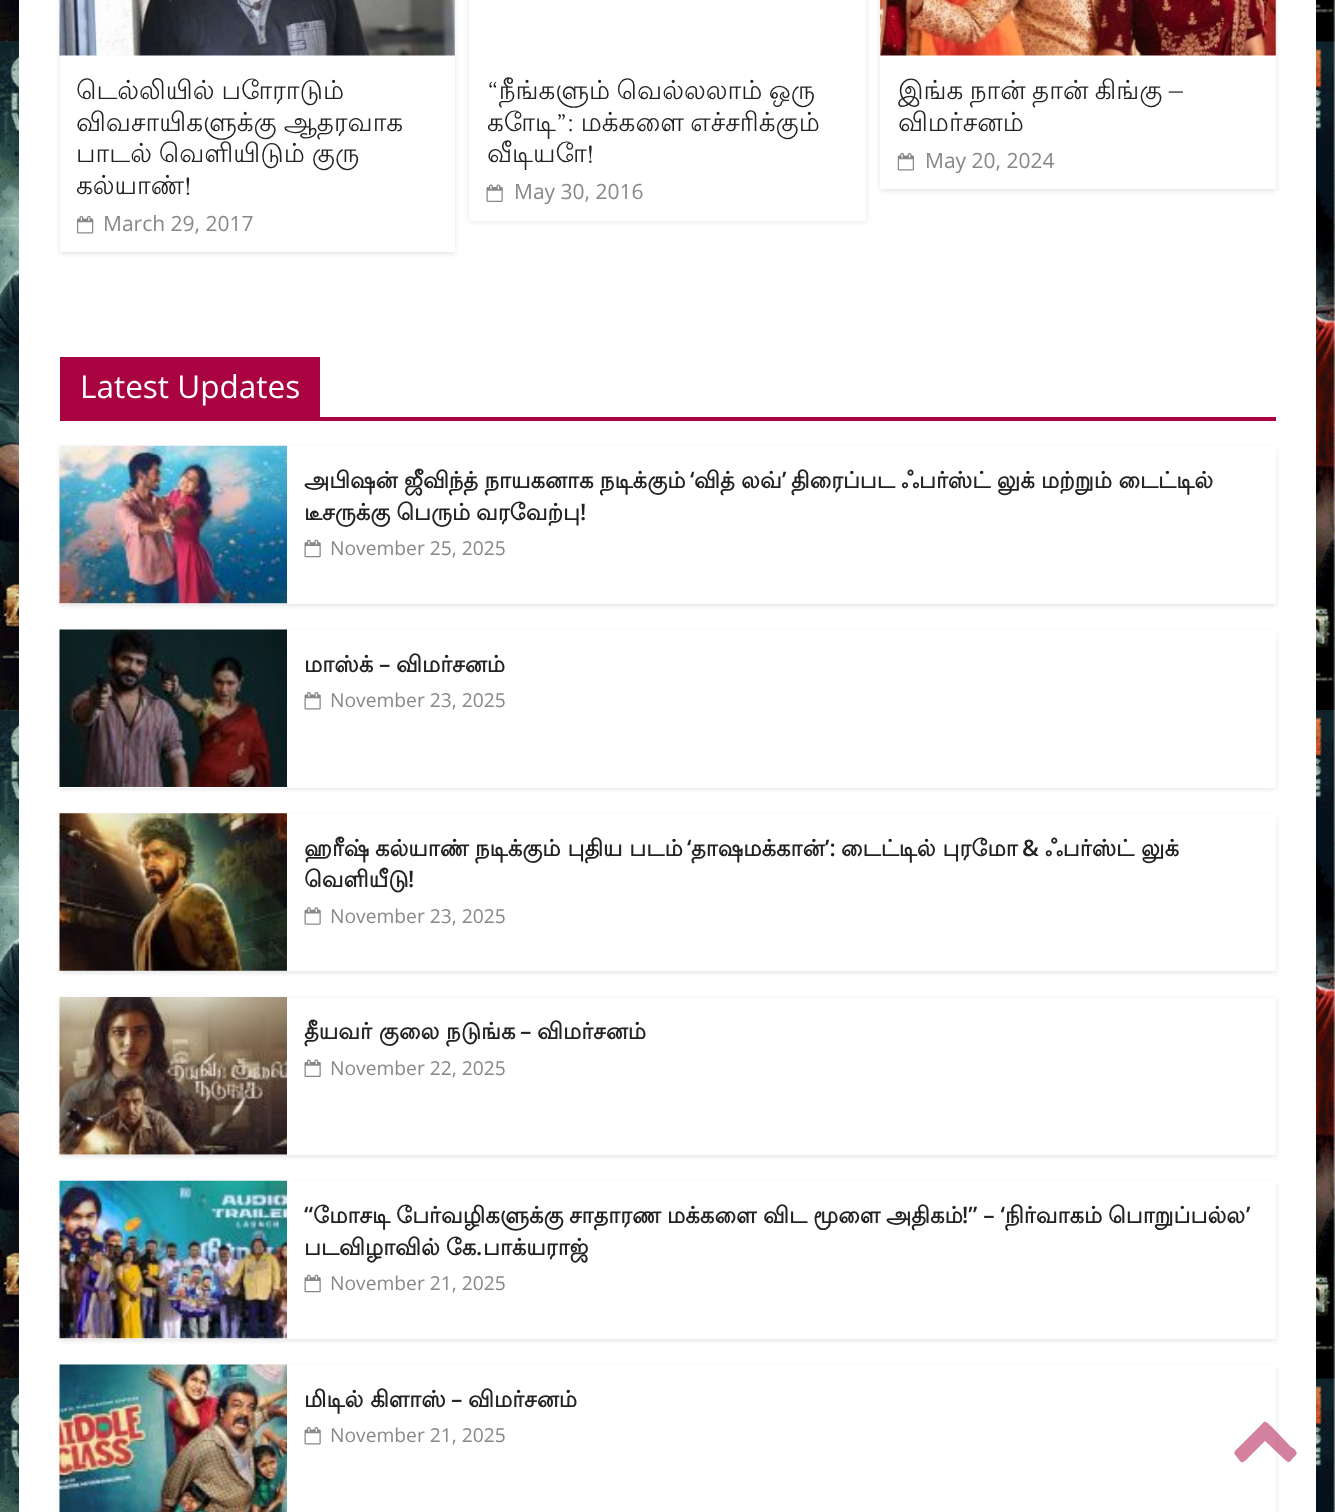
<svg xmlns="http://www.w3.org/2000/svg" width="1335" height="1512">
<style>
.a{font:26.25px Lohit Tamil;fill:#232323}
.b{font:21px Open Sans;fill:#888}
.c{font:31.5px Open Sans;fill:#fff}
.d{font:bold 22.75px Lohit Tamil;fill:#232323}
.e{font:600 22.75px Open Sans;fill:#232323}
.f{font:19.25px Open Sans;fill:#888}
</style>
<defs>
<clipPath id="clip1"><path d="M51 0h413v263h-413zm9-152h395v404h-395z" clip-rule="evenodd"/></clipPath>
<clipPath id="clip2"><path d="M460 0h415v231h-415zm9-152h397v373h-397z" clip-rule="evenodd"/></clipPath>
<clipPath id="clip3"><path d="M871 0h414v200h-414zm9-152h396v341h-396z" clip-rule="evenodd"/></clipPath>
</defs>
<rect width="100%" height="100%" fill="#fff"/>
<image href="1.png" x="0" y="0" width="1335" height="1512"/>
<path fill="#fff" d="M19 0h1297v1512H19z"/>
<g clip-path="url(#clip1)">
<path fill="#0000001a" filter="blur(2.5px)" d="M60 -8h395v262H60z"/>
</g>
<image href="2.png" x="59" y="0" width="396" height="56"/>
<image href="3.png" x="77" y="216" width="17" height="18"/>
<g clip-path="url(#clip2)">
<path fill="#0000001a" filter="blur(2.5px)" d="M469 -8h397v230H469z"/>
</g>
<image href="4.png" x="486" y="184" width="17" height="18"/>
<g clip-path="url(#clip3)">
<path fill="#0000001a" filter="blur(2.5px)" d="M880 -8h396v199H880z"/>
</g>
<image href="5.png" x="880" y="0" width="396" height="56"/>
<image href="6.png" x="897" y="153" width="17" height="18"/>
<path fill="#a90341" d="M60 417h1216v4H60z"/>
<path fill="#a90341" d="M60 357h260v60H60z"/>
<path fill="#0000001a" filter="blur(2.5px)" d="M60 448h1216v158H60z"/>
<path fill="#fff" d="M60 446h1216v158H60z"/>
<image href="7.png" x="59" y="445" width="228" height="159"/>
<image href="8.png" x="304" y="539" width="17" height="19"/>
<path fill="#0000001a" filter="blur(2.5px)" d="M60 632h1216v157H60z"/>
<path fill="#fff" d="M60 630h1216v158H60z"/>
<image href="9.png" x="59" y="629" width="228" height="158"/>
<image href="10.png" x="304" y="692" width="17" height="18"/>
<path fill="#0000001a" filter="blur(2.5px)" d="M60 816h1216v157H60z"/>
<path fill="#fff" d="M60 814h1216v157H60z"/>
<image href="11.png" x="59" y="813" width="228" height="158"/>
<image href="12.png" x="304" y="907" width="17" height="18"/>
<path fill="#0000001a" filter="blur(2.5px)" d="M60 999h1216v158H60z"/>
<path fill="#fff" d="M60 998h1216v157H60z"/>
<image href="13.png" x="59" y="997" width="228" height="158"/>
<image href="4.png" x="304" y="1059" width="17" height="18"/>
<path fill="#0000001a" filter="blur(2.5px)" d="M60 1183h1216v158H60z"/>
<path fill="#fff" d="M60 1181h1216v158H60z"/>
<image href="14.png" x="59" y="1180" width="228" height="159"/>
<image href="8.png" x="304" y="1274" width="17" height="19"/>
<path fill="#0000001a" filter="blur(2.5px)" d="M60 1367h1216v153H60z"/>
<path fill="#fff" d="M287 1365h989v147H287z"/>
<image href="15.png" x="59" y="1364" width="228" height="148"/>
<image href="10.png" x="304" y="1427" width="17" height="18"/>
<path fill="#a9034180" d="M1296 1455c-7 7-6 10-13 3l-18-17l-17 17c-7 7-6 5-12-2c-4-4 0-6 3-9l20-20c7-7 5-7 13 0l19 20c1 0 8 5 5 8z"/>
<text class="a" x="76" y="99" word-spacing="-1">டெல்லியில் போராடும்</text>
<text class="a" x="76" y="131" word-spacing="-1">விவசாயிகளுக்கு ஆதரவாக</text>
<text class="a" x="76" y="162" word-spacing="-1">பாடல் வெளியிடும் குரு</text>
<text class="a" x="76" y="194">கல்யாண்!</text>
<text class="b" x="103" y="231">March 29, 2017</text>
<text class="a" x="487" y="99" word-spacing="-1.5">“நீங்களும் வெல்லலாம் ஒரு</text>
<text class="a" x="487" y="131" word-spacing="-1.5">கோடி”: மக்களை எச்சரிக்கும்</text>
<text class="a" x="487" y="162">வீடியோ!</text>
<text class="b" x="514" y="199">May 30, 2016</text>
<text class="a" x="898" y="99" word-spacing="-1.5">இங்க நான் தான் கிங்கு –</text>
<text class="a" x="898" y="131">விமர்சனம்</text>
<text class="b" x="925" y="168">May 20, 2024</text>
<text class="c" x="80" y="398">Latest Updates</text>
<text class="d" x="304" y="488" word-spacing="-0.5">அபிஷன் ஜீவிந்த் நாயகனாக நடிக்கும்</text>
<text class="e" x="690" y="488">‘</text>
<text class="d" x="694" y="488" word-spacing="-0.5">வித் லவ்</text>
<text class="e" x="782" y="488">’</text>
<text class="d" x="791" y="488" word-spacing="-0.5">திரைப்பட ஃபர்ஸ்ட் லுக் மற்றும் டைட்டில்</text>
<text class="d" x="304" y="520" word-spacing="-1">டீசருக்கு பெரும் வரவேற்பு</text>
<text class="e" x="580" y="520">!</text>
<text class="f" x="330" y="555">November 25, 2025</text>
<text class="d" x="304" y="672">மாஸ்க்</text>
<text class="e" x="379" y="672">–</text>
<text class="d" x="396" y="672">விமர்சனம்</text>
<text class="f" x="330" y="707">November 23, 2025</text>
<text class="d" x="304" y="856" word-spacing="-1">ஹரீஷ் கல்யாண்</text>
<text class="d" x="475" y="856">நடிக்கும் புதிய படம்</text>
<text class="e" x="687" y="856">‘</text>
<text class="d" x="691" y="856">தாஷமக்கான்</text>
<text class="e" x="825" y="856">’:</text>
<text class="d" x="841" y="856">டைட்டில் புரமோ</text>
<text class="e" x="1022" y="856">&amp;</text>
<text class="d" x="1045" y="856">ஃபர்ஸ்ட் லுக்</text>
<text class="d" x="304" y="887">வெளியீடு</text>
<text class="e" x="408" y="887">!</text>
<text class="f" x="330" y="923">November 23, 2025</text>
<text class="d" x="304" y="1039">தீயவர் குலை நடுங்க</text>
<text class="e" x="520" y="1039">–</text>
<text class="d" x="537" y="1039">விமர்சனம்</text>
<text class="f" x="330" y="1075">November 22, 2025</text>
<text class="e" x="304" y="1223">“</text>
<text class="d" x="313" y="1223">மோசடி</text>
<text class="d" x="396" y="1223">பேர்வழிகளுக்கு</text>
<text class="d" x="667" y="1223">மக்களை</text>
<text class="d" x="763" y="1223">விட</text>
<text class="d" x="886" y="1223">அதிகம்</text>
<text class="e" x="962" y="1223">!” – ‘</text>
<text class="d" x="1005" y="1223" word-spacing="-1">நிர்வாகம் பொறுப்பல்ல</text>
<text class="e" x="1246" y="1223">’</text>
<text class="d" x="569" y="1223">சாதாரண</text>
<text class="d" x="813" y="1223">மூளை</text>
<text class="d" x="304" y="1255" word-spacing="-1">படவிழாவில் கே</text>
<text class="e" x="476" y="1255">.</text>
<text class="d" x="483" y="1255">பாக்யராஜ்</text>
<text class="f" x="330" y="1290">November 21, 2025</text>
<text class="d" x="304" y="1407">மிடில் கிளாஸ்</text>
<text class="e" x="451" y="1407">–</text>
<text class="d" x="468" y="1407">விமர்சனம்</text>
<text class="f" x="330" y="1442">November 21, 2025</text>
</svg>
